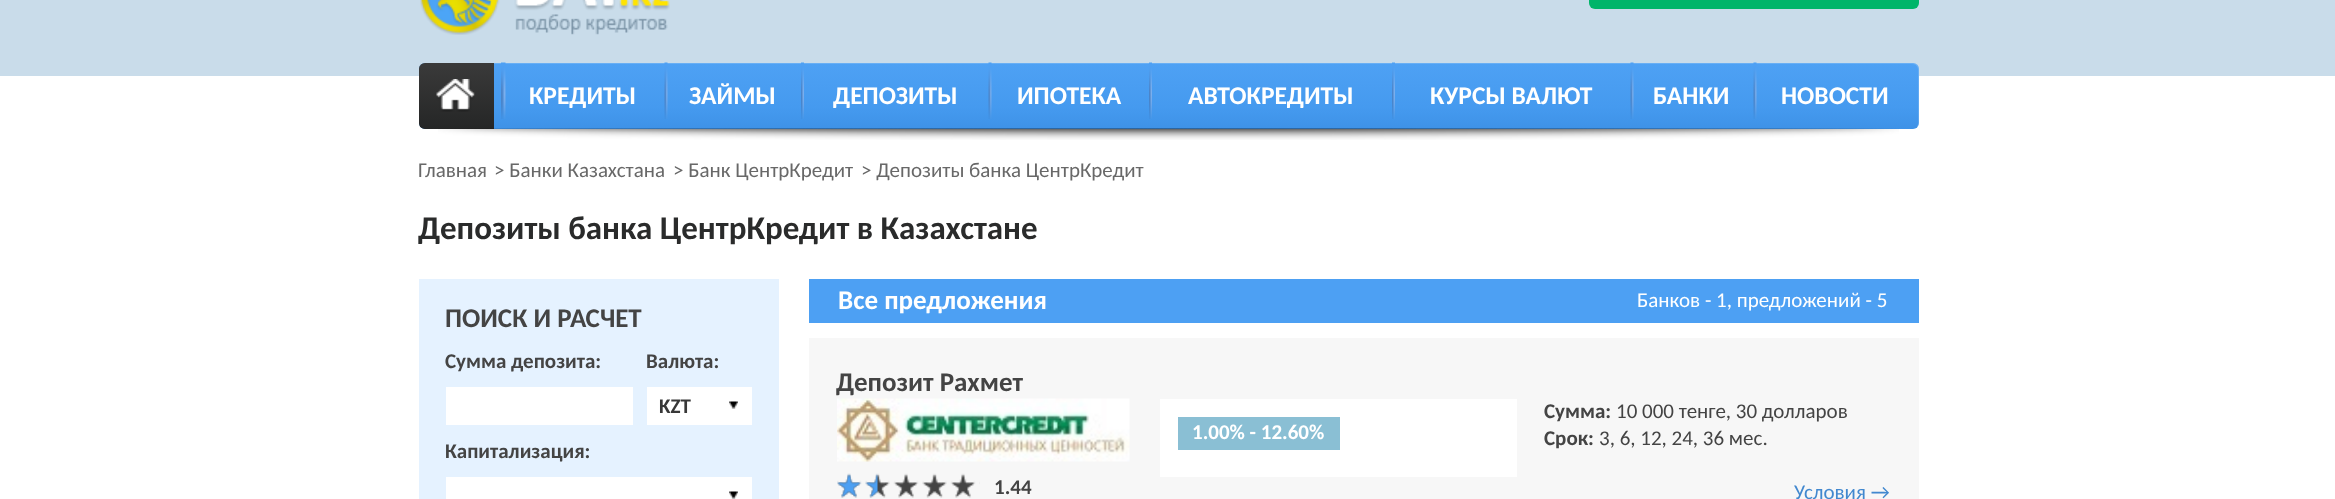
<svg xmlns="http://www.w3.org/2000/svg" width="2335" height="499">
<style>
.a{font:bold 25.5px Carlito;fill:#fff}
.b{font:21px Carlito;fill:#686868}
.c{font:bold 33px Carlito;fill:#2a2b2b}
.d{font:bold 27px Carlito;fill:#444}
.e{font:bold 21px Carlito;fill:#444}
.f{font:bold 21px Carlito;fill:#383838}
.g{font:bold 27px Carlito;fill:#fff}
.h{font:21px Carlito;fill:#fff}
.i{font:bold 21px Carlito;fill:#fff}
.j{font:21px Carlito;fill:#444}
.k{font:21px Carlito;fill:#4288cf}
</style>
<defs>
<linearGradient id="g1" gradientUnits="userSpaceOnUse" x1="1169" y1="63" x2="1169" y2="129"><stop offset="0" stop-color="#4ea1f4"/><stop offset="0.67" stop-color="#459aef"/><stop offset="1" stop-color="#3e92e7"/></linearGradient>
<linearGradient id="g2" gradientUnits="userSpaceOnUse" x1="456" y1="63" x2="456" y2="129"><stop offset="0" stop-color="#3a3a3a"/><stop offset="1" stop-color="#252626"/></linearGradient>
</defs>
<rect width="100%" height="100%" fill="#fff"/>
<path fill="#c9dcea" d="M0 0h2335v76H0z"/>
<image href="1.png" x="420" y="0" width="250" height="35"/>
<rect fill="#00b56a" x="1589" y="-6" width="330" height="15" rx="6"/>
<rect fill="url(#g1)" x="419" y="63" width="1500" height="66" rx="6"/>
<path fill="#ffffff26" d="M424 64h1488c4 0 6 3 6 6v54l-1 3c1-1 2-2 2-4v-54c0-3-3-6-6-6h-1488c-2 0-4 1-5 3c1-1 3-2 4-2z"/>
<path fill="url(#g2)" d="M425 63h69v66h-69c-3.5 0-6-2.5-6-6v-54c0-3.5 2.5-6 6-6z"/>
<image href="2.png" x="436" y="79" width="39" height="33"/>
<image href="3.png" x="501" y="62" width="5" height="57"/>
<image href="4.png" x="664" y="62" width="4" height="57"/>
<image href="5.png" x="801" y="62" width="3" height="57"/>
<image href="4.png" x="988" y="62" width="4" height="57"/>
<image href="6.png" x="1149" y="62" width="3" height="57"/>
<image href="5.png" x="1392" y="62" width="3" height="57"/>
<image href="4.png" x="1630" y="62" width="4" height="57"/>
<image href="4.png" x="1753" y="62" width="4" height="57"/>
<image href="7.png" x="438" y="128" width="1461" height="12"/>
<path fill="#e5f2ff" d="M419 279h360v220H419z"/>
<path fill="#fff" d="M446 387h187v38H446z"/>
<path fill="#fff" d="M647 387h105v38H647z"/>
<image href="8.png" x="729" y="401" width="9" height="8"/>
<path fill="#fff" d="M446 477h306v22H446z"/>
<image href="8.png" x="729" y="491" width="9" height="8"/>
<path fill="#4da0f3" d="M809 279h1110v44H809z"/>
<path fill="#f7f7f7" d="M809 338h1110v161H809z"/>
<path fill="#fff" d="M1160 399h357v78H1160z"/>
<path fill="#8abfd4" d="M1178 417h162v33H1178z"/>
<image href="9.png" x="837" y="398" width="293" height="64"/>
<image href="10.png" x="837" y="473" width="143" height="25"/>
<image href="11.png" x="837" y="473" width="41" height="25"/>
<text class="a" x="529" y="104">КРЕДИТЫ</text>
<text class="a" x="689" y="104">ЗАЙМЫ</text>
<text class="a" x="833" y="104">ДЕПОЗИТЫ</text>
<text class="a" x="1017" y="104">ИПОТЕКА</text>
<text class="a" x="1188" y="104">АВТОКРЕДИТЫ</text>
<text class="a" x="1430" y="104">КУРСЫ ВАЛЮТ</text>
<text class="a" x="1653" y="104">БАНКИ</text>
<text class="a" x="1781" y="104">НОВОСТИ</text>
<text class="b" x="418" y="177">Главная</text>
<text class="b" x="494" y="177">&gt; Банки Казахстана</text>
<text class="b" x="673" y="177">&gt; Банк ЦентрКредит</text>
<text class="b" x="861" y="177">&gt; Депозиты банка ЦентрКредит</text>
<text class="c" x="418" y="239">Депозиты банка ЦентрКредит в Казахстане</text>
<text class="d" x="445" y="327">ПОИСК И РАСЧЕТ</text>
<text class="e" x="445" y="368">Сумма депозита:</text>
<text class="e" x="646" y="368">Валюта:</text>
<text class="f" x="659" y="413">KZT</text>
<text class="e" x="445" y="458">Капитализация:</text>
<text class="g" x="838" y="309">Все предложения</text>
<text class="h" x="1637" y="307">Банков - 1, предложений - 5</text>
<text class="d" x="836" y="391">Депозит Рахмет</text>
<text class="i" x="1192" y="439">1.00% - 12.60%</text>
<text class="e" x="1544" y="418">Сумма:</text>
<text class="j" x="1616" y="418">10 000 тенге, 30 долларов</text>
<text class="e" x="1544" y="445">Срок:</text>
<text class="j" x="1599" y="445">3, 6, 12, 24, 36 мес.</text>
<text class="e" x="994" y="494">1.44</text>
<text class="k" x="1794" y="499">Условия →</text>
</svg>
